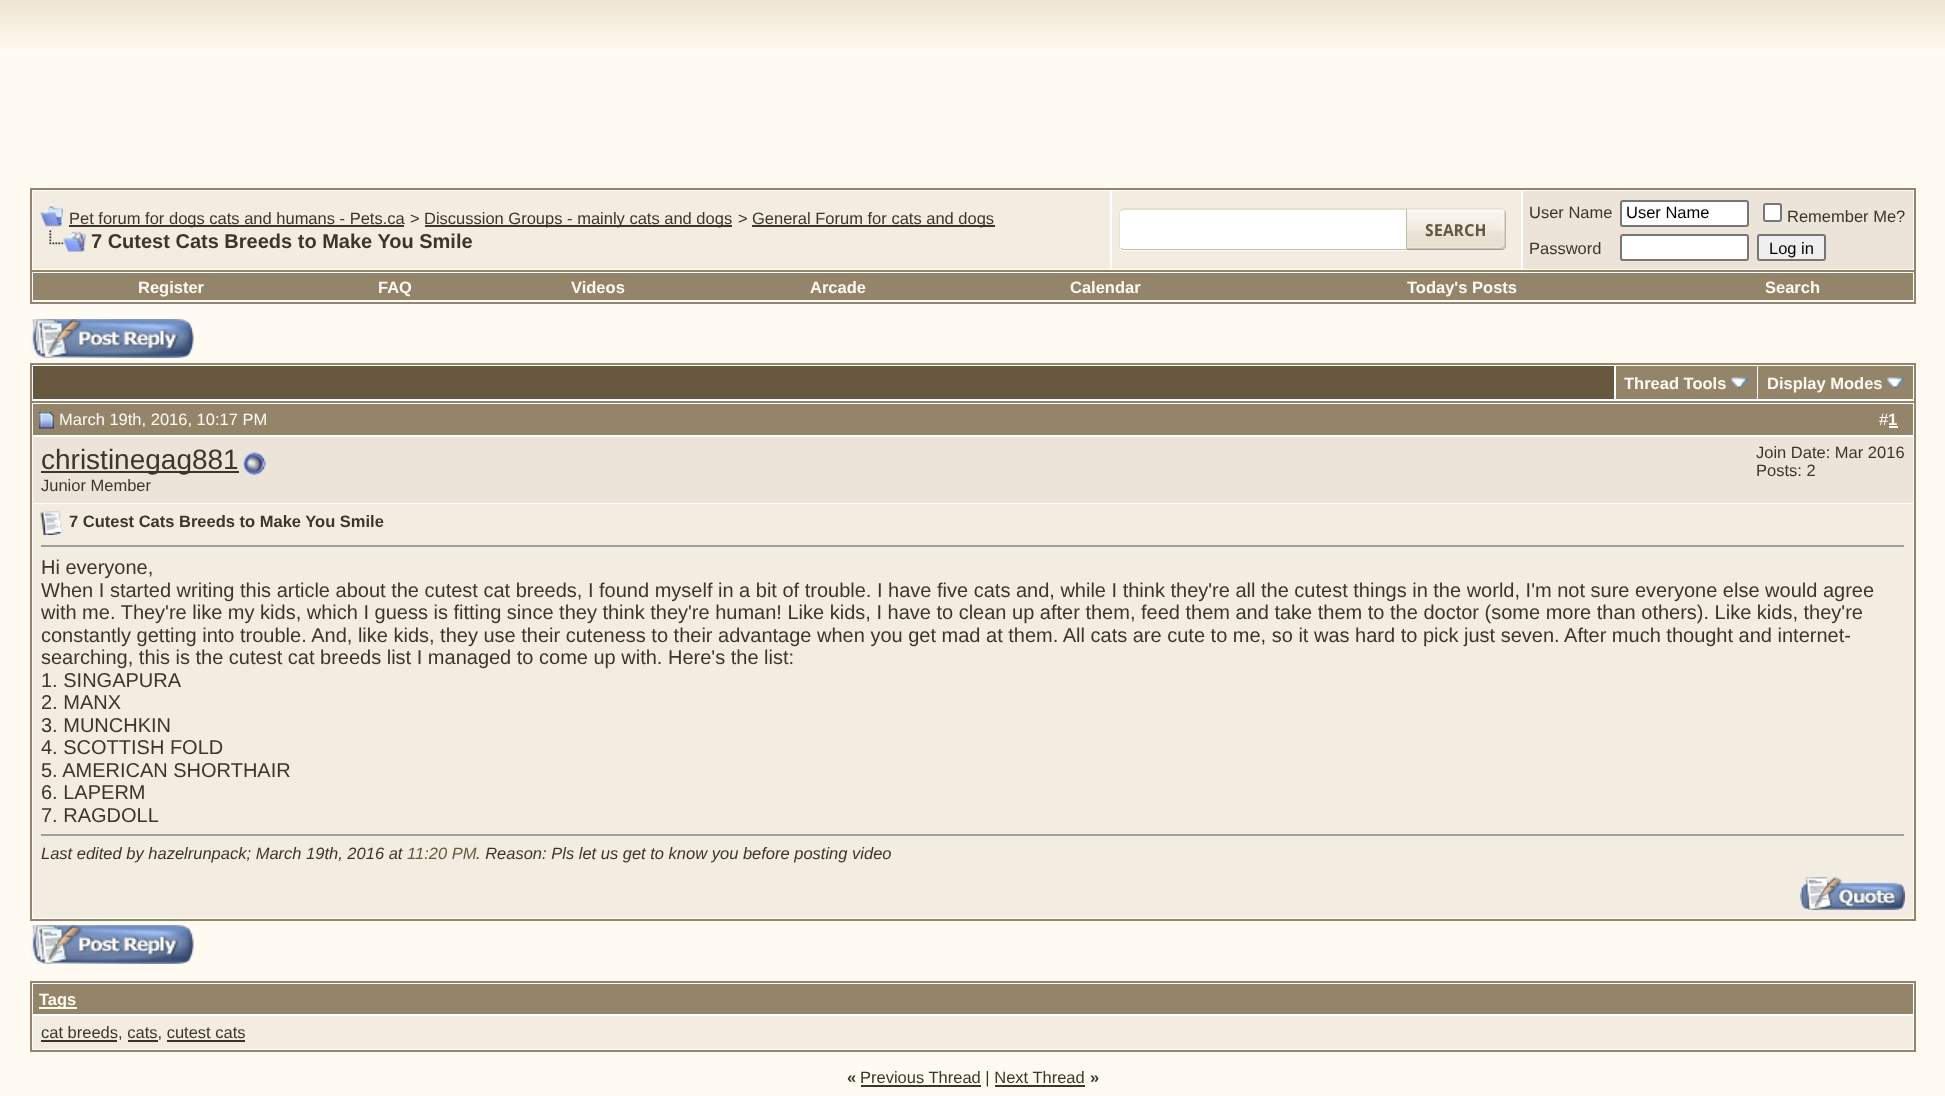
<svg xmlns="http://www.w3.org/2000/svg" width="1945" height="1096">
<style>
.a{font:16.5px Liberation Sans;fill:#3b352a}
.b{font:bold 20px Liberation Sans;fill:#3b352a}
.c{font:bold 16.5px Droid Sans;fill:#67583f}
.d{font:16.5px Liberation Sans;fill:#000}
.e{font:bold 16.5px Liberation Sans;fill:#fffaf2}
.f{font:16.5px Liberation Sans;fill:#fffaf2}
.g{font:28px Liberation Sans;fill:#3b352a}
.h{font:bold 16.5px Liberation Sans;fill:#3b352a}
.i{font:20px Liberation Sans;fill:#3b352a}
.j{font:italic 16.5px Liberation Sans;fill:#3b352a}
.k{font:italic 16.5px Liberation Sans;fill:#67583f}
</style>
<rect width="100%" height="100%" fill="#fffaf2"/>
<image href="1.png" x="0" y="0" width="1945" height="49"/>
<path fill="#fff" stroke="#94846a" stroke-width="2" d="M31 189h1884v82H31z"/>
<path fill="#f3ede1" d="M33 191h1077v78H33z"/>
<image href="2.png" x="40" y="206" width="23" height="21"/>
<path fill="#3b352a" d="M69 225h335v2H69z"/>
<path fill="#3b352a" d="M425 225h307v2H425z"/>
<path fill="#3b352a" d="M752 225h243v2H752z"/>
<image href="3.png" x="49" y="230" width="37" height="22"/>
<path fill="#f3ede1" d="M1112 191h409v78H1112z"/>
<path fill="#fff" d="M1124 209h283v42h-283c-3 0-5-2-5-5v-32c0-3 2-5 5-5z"/>
<path fill="#e7dfd2" d="M1124 210l-3 1l-1-1l2-2h285l-1 2z"/>
<path fill="#c0baaa" d="M1407 208l-1 2v39l1 1z"/>
<path fill="#c0baaa" d="M1406 250h-283l-2-1v-1l3 1h282z"/>
<path fill="#e7dfd4" d="M1119 213v33c0 1 .5 2 1.5 3l.5-1c-.5 0-1-1-1-2v-33c0-1 .5-2 1-2l-.5-1c-1 1-1.5 2-1.5 3z"/>
<image href="4.png" x="1407" y="208" width="99" height="42"/>
<path fill="#ece4d9" d="M1523 191h390v78H1523z"/>
<rect fill="#fff" stroke="#767676" stroke-width="2" x="1621" y="201" width="127" height="25" rx="2"/>
<rect fill="#fff" stroke="#767676" stroke-width="2" x="1764" y="204" width="17" height="17" rx="2"/>
<rect fill="#fff" stroke="#767676" stroke-width="2" x="1621" y="235" width="127" height="25" rx="2"/>
<rect fill="#efefef" stroke="#767676" stroke-width="2" x="1758" y="235" width="67" height="25" rx="2"/>
<path fill="#fff" d="M32 272h1882v30H32z"/>
<path fill="#94846a" d="M1914 272h2v31H1914z"/>
<path fill="#94846a" d="M30 302h1886v2H30z"/>
<path fill="#94846a" d="M30 272h2v31H30z"/>
<path fill="#94846a" d="M33 273h1880v27H33z"/>
<image href="5.png" x="31" y="319" width="163" height="39"/>
<path fill="#fff" d="M32 365h1882v36H32z"/>
<path fill="#94846a" d="M30 363h1886v2H30z"/>
<path fill="#94846a" d="M1914 363h2v38H1914z"/>
<path fill="#94846a" d="M30 363h2v38H30z"/>
<path fill="#67583f" d="M33 366h1581v33H33z"/>
<path fill="#94846a" d="M1616 366h141v33H1616z"/>
<image href="6.png" x="1731" y="377" width="17" height="11"/>
<path fill="#94846a" d="M1758 366h155v33H1758z"/>
<image href="7.png" x="1887" y="377" width="17" height="11"/>
<path fill="#fff" stroke="#94846a" stroke-width="2" d="M31 402h1884v518H31z"/>
<path fill="#94846a" d="M33 404h1880v31H33z"/>
<image href="8.png" x="39" y="412" width="15" height="17"/>
<path fill="#fffaf2" d="M1889 426h9v2H1889z"/>
<path fill="#ece4d9" d="M33 437h1880v66H33z"/>
<path fill="#3b352a" d="M41 471h198v2H41z"/>
<image href="9.png" x="243" y="452" width="23" height="23"/>
<path fill="#f3ede1" d="M33 504h1880v414H33z"/>
<image href="10.png" x="40" y="511" width="24" height="24"/>
<path fill="#9f9f9f" d="M41 545h1864v2H41z"/>
<path fill="#eee" d="M1904 545h2v2H1904z"/>
<path fill="#9f9f9f" d="M41 834h1864v2H41z"/>
<path fill="#eee" d="M1904 834h2v2H1904z"/>
<image href="11.png" x="1800" y="877" width="105" height="33"/>
<image href="5.png" x="31" y="925" width="163" height="39"/>
<path fill="#fff" stroke="#94846a" stroke-width="2" d="M31 982h1884v69H31z"/>
<path fill="#94846a" d="M33 984h1880v30H33z"/>
<path fill="#fffaf2" d="M39 1007h38v2H39z"/>
<path fill="#f3ede1" d="M33 1016h1880v33H33z"/>
<path fill="#3b352a" d="M41 1040h76v2H41z"/>
<path fill="#3b352a" d="M128 1040h30v2H128z"/>
<path fill="#3b352a" d="M167 1040h78v2H167z"/>
<path fill="#3b352a" d="M861 1085h120v2H861z"/>
<path fill="#3b352a" d="M995 1085h90v2H995z"/>
<text class="a" x="69" y="224">Pet forum for dogs cats and humans - Pets.ca</text>
<text class="a" x="410" y="224">&gt;</text>
<text class="a" x="424" y="224">Discussion Groups - mainly cats and dogs</text>
<text class="a" x="738" y="224">&gt;</text>
<text class="a" x="752" y="224">General Forum for cats and dogs</text>
<text class="b" x="91" y="248">7 Cutest Cats Breeds to Make You Smile</text>
<text class="c" x="1425" y="236">SEARCH</text>
<text class="a" x="1529" y="218">User Name</text>
<text class="d" x="1626" y="218">User Name</text>
<text class="a" x="1787" y="222">Remember Me?</text>
<text class="a" x="1529" y="254">Password</text>
<text class="d" x="1769" y="254">Log in</text>
<text class="e" x="138" y="293">Register</text>
<text class="e" x="378" y="293">FAQ</text>
<text class="e" x="571" y="293">Videos</text>
<text class="e" x="810" y="293">Arcade</text>
<text class="e" x="1070" y="293">Calendar</text>
<text class="e" x="1407" y="293">Today's Posts</text>
<text class="e" x="1765" y="293">Search</text>
<text class="e" x="1624" y="389">Thread Tools</text>
<text class="e" x="1767" y="389">Display Modes</text>
<text class="f" x="59" y="425">March 19th, 2016, 10:17 PM</text>
<text class="f" x="1879" y="425">#</text>
<text class="e" x="1888" y="425">1</text>
<text class="g" x="41" y="469">christinegag881</text>
<text class="a" x="41" y="491">Junior Member</text>
<text class="a" x="1756" y="458">Join Date: Mar 2016</text>
<text class="a" x="1756" y="476">Posts: 2</text>
<text class="h" x="69" y="527">7 Cutest Cats Breeds to Make You Smile</text>
<text class="i" x="41" y="574">Hi everyone,</text>
<text class="i" x="41" y="597">When I started writing this article about the cutest cat breeds, I found myself in a bit of trouble. I have five cats and, while I think they're all the cutest things in the world, I'm not sure everyone else would agree</text>
<text class="i" x="41" y="619">with me. They're like my kids, which I guess is fitting since they think they're human! Like kids, I have to clean up after them, feed them and take them to the doctor (some more than others). Like kids, they're</text>
<text class="i" x="41" y="642">constantly getting into trouble. And, like kids, they use their cuteness to their advantage when you get mad at them. All cats are cute to me, so it was hard to pick just seven. After much thought and internet-</text>
<text class="i" x="41" y="664">searching, this is the cutest cat breeds list I managed to come up with. Here's the list:</text>
<text class="i" x="41" y="687">1. SINGAPURA</text>
<text class="i" x="41" y="709">2. MANX</text>
<text class="i" x="41" y="732">3. MUNCHKIN</text>
<text class="i" x="41" y="754">4. SCOTTISH FOLD</text>
<text class="i" x="41" y="777">5. AMERICAN SHORTHAIR</text>
<text class="i" x="41" y="799">6. LAPERM</text>
<text class="i" x="41" y="822">7. RAGDOLL</text>
<text class="j" x="41" y="859">Last edited by hazelrunpack; March 19th, 2016 at</text>
<text class="k" x="407" y="859">11:20 PM</text>
<text class="j" x="476" y="859">. Reason: Pls let us get to know you before posting video</text>
<text class="e" x="39" y="1005">Tags</text>
<text class="a" x="41" y="1038">cat breeds, cats, cutest cats</text>
<text class="h" x="847" y="1083">«</text>
<text class="a" x="860" y="1083">Previous Thread | Next Thread</text>
<text class="h" x="1090" y="1083">»</text>
</svg>
